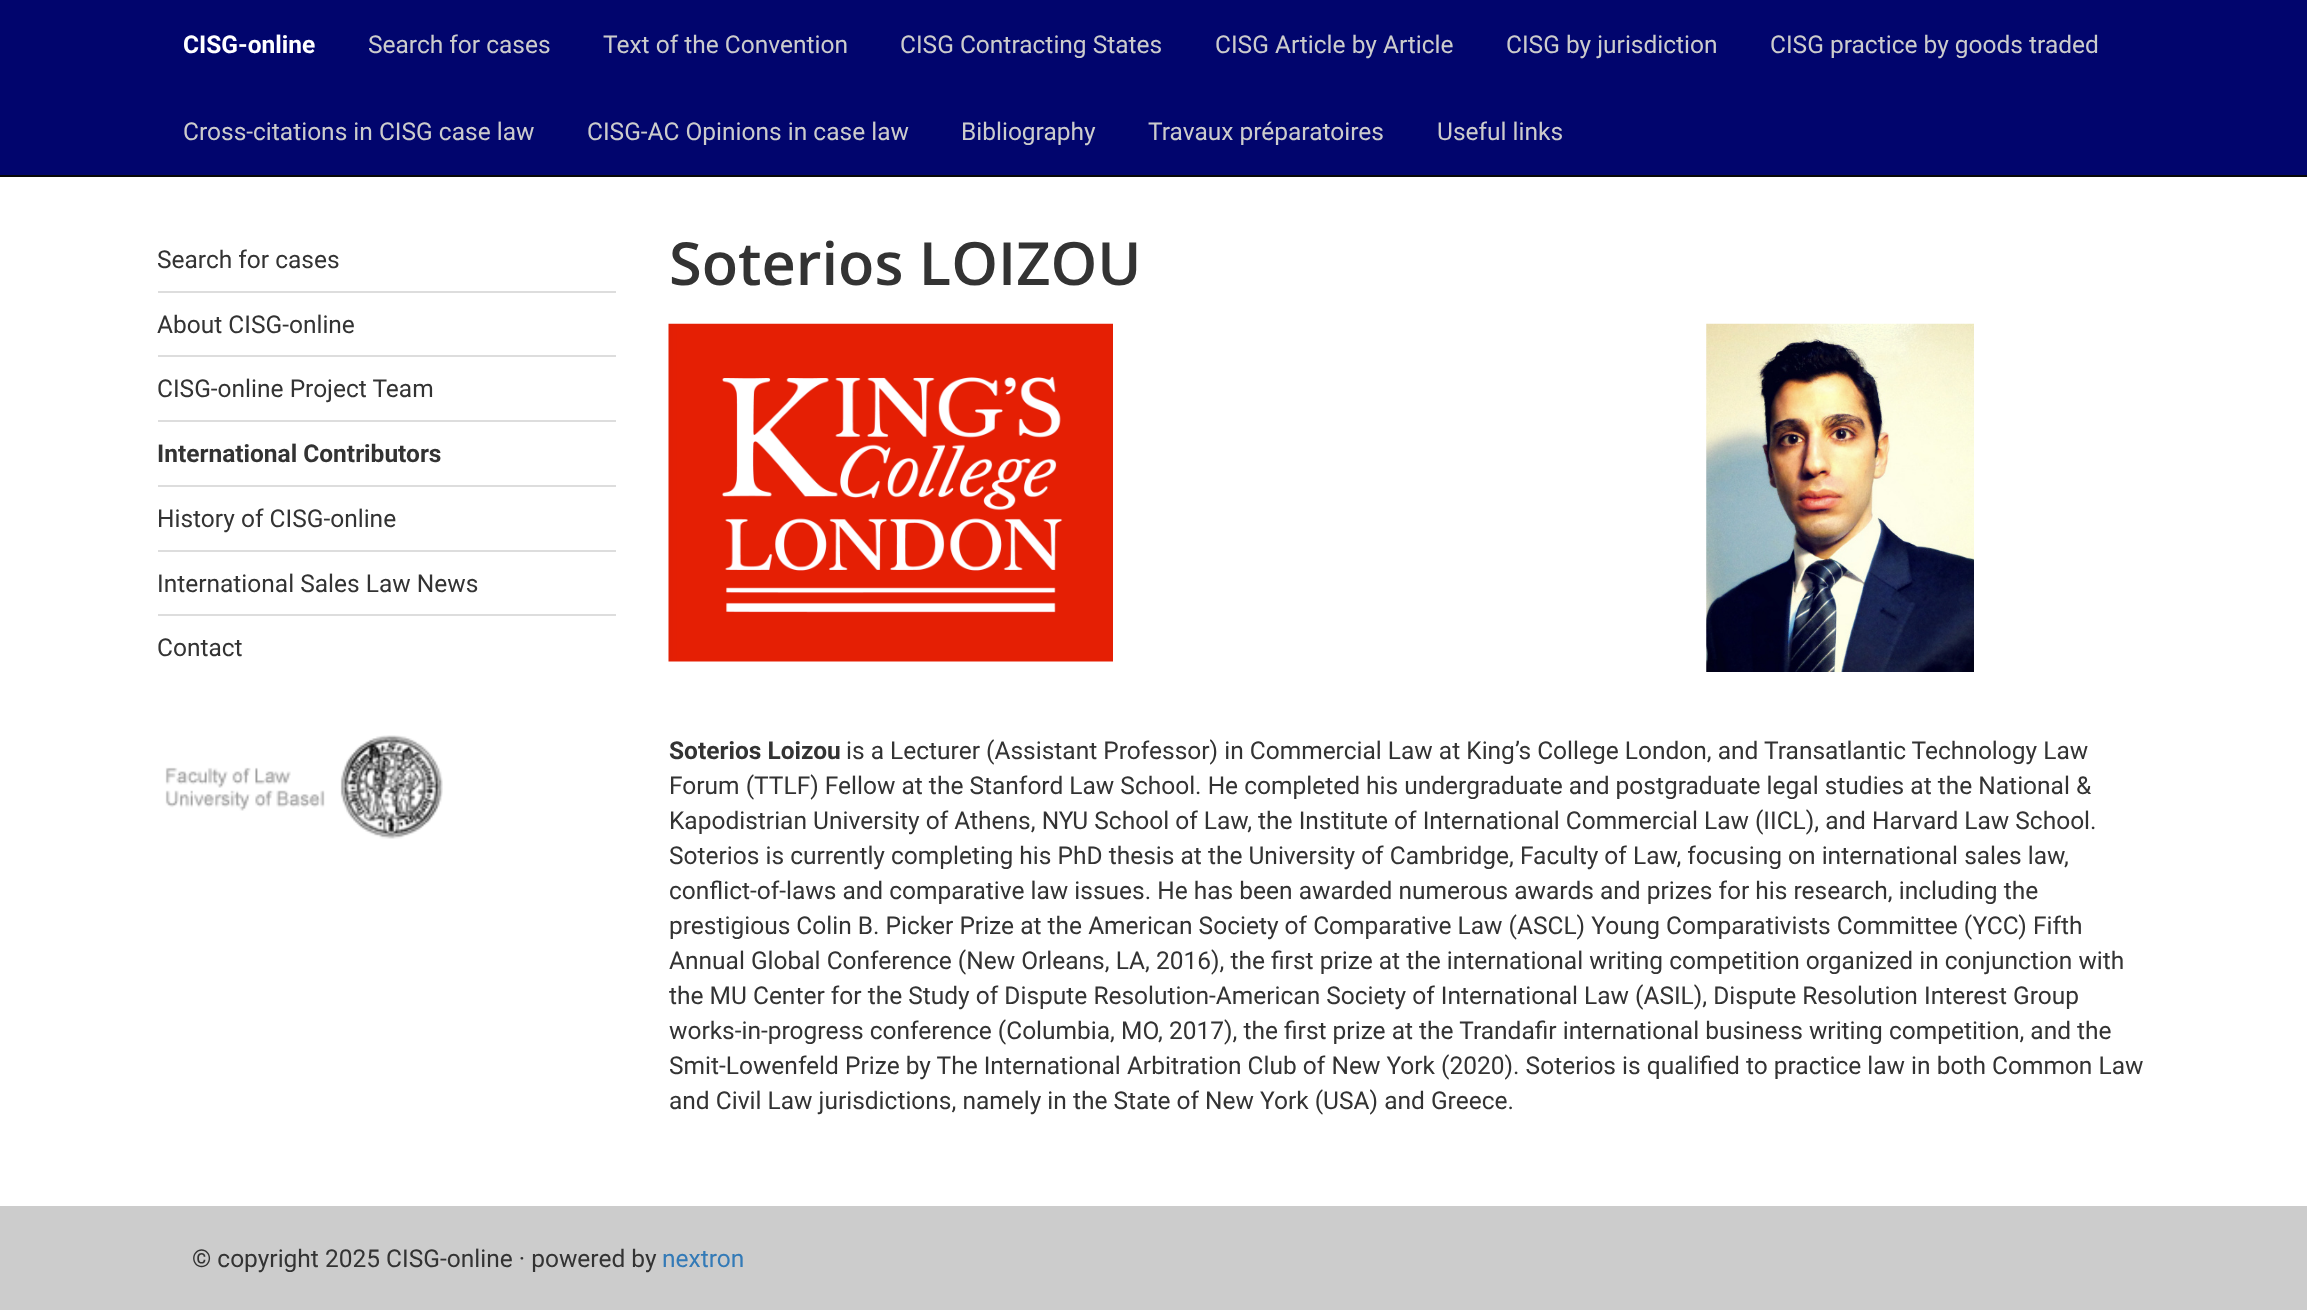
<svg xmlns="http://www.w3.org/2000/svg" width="2307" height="1310">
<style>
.a{font:bold 24.5px Roboto;fill:#fff}
.b{font:24.5px Roboto;fill:#ccc}
.c{font:24.5px Roboto;fill:#333}
.d{font:bold 24.5px Roboto;fill:#333}
.e{font:600 59.5px Open Sans;fill:#333}
.f{font:24.5px Roboto;fill:#337ab7}
</style>
<rect width="100%" height="100%" fill="#fff"/>
<path fill="#01056d" d="M0 0h2307v175H0z"/>
<path fill="#080808" d="M0 175h2307v2H0z"/>
<path fill="#ddd" d="M158 291h458v2H158z"/>
<path fill="#ddd" d="M158 355h458v2H158z"/>
<path fill="#ddd" d="M158 420h458v2H158z"/>
<path fill="#ddd" d="M158 485h458v2H158z"/>
<path fill="#ddd" d="M158 550h458v2H158z"/>
<path fill="#ddd" d="M158 614h458v2H158z"/>
<image href="1.png" x="165" y="735" width="278" height="104"/>
<image href="2.png" x="668" y="323" width="445" height="339"/>
<image href="3.png" x="1706" y="323" width="268" height="349"/>
<path fill="#ccc" d="M0 1206h2307v104H0z"/>
<text class="a" x="183" y="53">CISG-online</text>
<text class="b" x="368" y="53">Search for cases</text>
<text class="b" x="603" y="53">Text of the Convention</text>
<text class="b" x="900" y="53">CISG Contracting States</text>
<text class="b" x="1215" y="53">CISG Article by Article</text>
<text class="b" x="1506" y="53">CISG by jurisdiction</text>
<text class="b" x="1770" y="53">CISG practice by goods traded</text>
<text class="b" x="183" y="140">Cross-citations in CISG case law</text>
<text class="b" x="587" y="140">CISG-AC Opinions in case law</text>
<text class="b" x="961" y="140">Bibliography</text>
<text class="b" x="1148" y="140">Travaux préparatoires</text>
<text class="b" x="1437" y="140">Useful links</text>
<text class="c" x="157" y="268">Search for cases</text>
<text class="c" x="157" y="333">About CISG-online</text>
<text class="c" x="157" y="397">CISG-online Project Team</text>
<text class="d" x="157" y="462">International Contributors</text>
<text class="c" x="157" y="527">History of CISG-online</text>
<text class="c" x="157" y="592">International Sales Law News</text>
<text class="c" x="157" y="656">Contact</text>
<text class="e" x="669" y="285">Soterios LOIZOU</text>
<text class="d" x="669" y="759">Soterios Loizou</text>
<text class="c" x="846" y="759">is a Lecturer (Assistant Professor) in Commercial Law at King’s College London, and Transatlantic Technology Law</text>
<text class="c" x="669" y="794">Forum (TTLF) Fellow at the Stanford Law School. He completed his undergraduate and postgraduate legal studies at the National &amp;</text>
<text class="c" x="669" y="829">Kapodistrian University of Athens, NYU School of Law, the Institute of International Commercial Law (IICL), and Harvard Law School.</text>
<text class="c" x="669" y="864">Soterios is currently completing his PhD thesis at the University of Cambridge, Faculty of Law, focusing on international sales law,</text>
<text class="c" x="669" y="899">conflict-of-laws and comparative law issues. He has been awarded numerous awards and prizes for his research, including the</text>
<text class="c" x="669" y="934">prestigious Colin B. Picker Prize at the American Society of Comparative Law (ASCL) Young Comparativists Committee (YCC) Fifth</text>
<text class="c" x="669" y="969">Annual Global Conference (New Orleans, LA, 2016), the first prize at the international writing competition organized in conjunction with</text>
<text class="c" x="669" y="1004">the MU Center for the Study of Dispute Resolution-American Society of International Law (ASIL), Dispute Resolution Interest Group</text>
<text class="c" x="669" y="1039">works-in-progress conference (Columbia, MO, 2017), the first prize at the Trandafir international business writing competition, and the</text>
<text class="c" x="669" y="1074">Smit-Lowenfeld Prize by The International Arbitration Club of New York (2020). Soterios is qualified to practice law in both Common Law</text>
<text class="c" x="669" y="1109">and Civil Law jurisdictions, namely in the State of New York (USA) and Greece.</text>
<text class="c" x="192" y="1267">© copyright 2025 CISG-online · powered by</text>
<text class="f" x="662" y="1267">nextron</text>
</svg>
